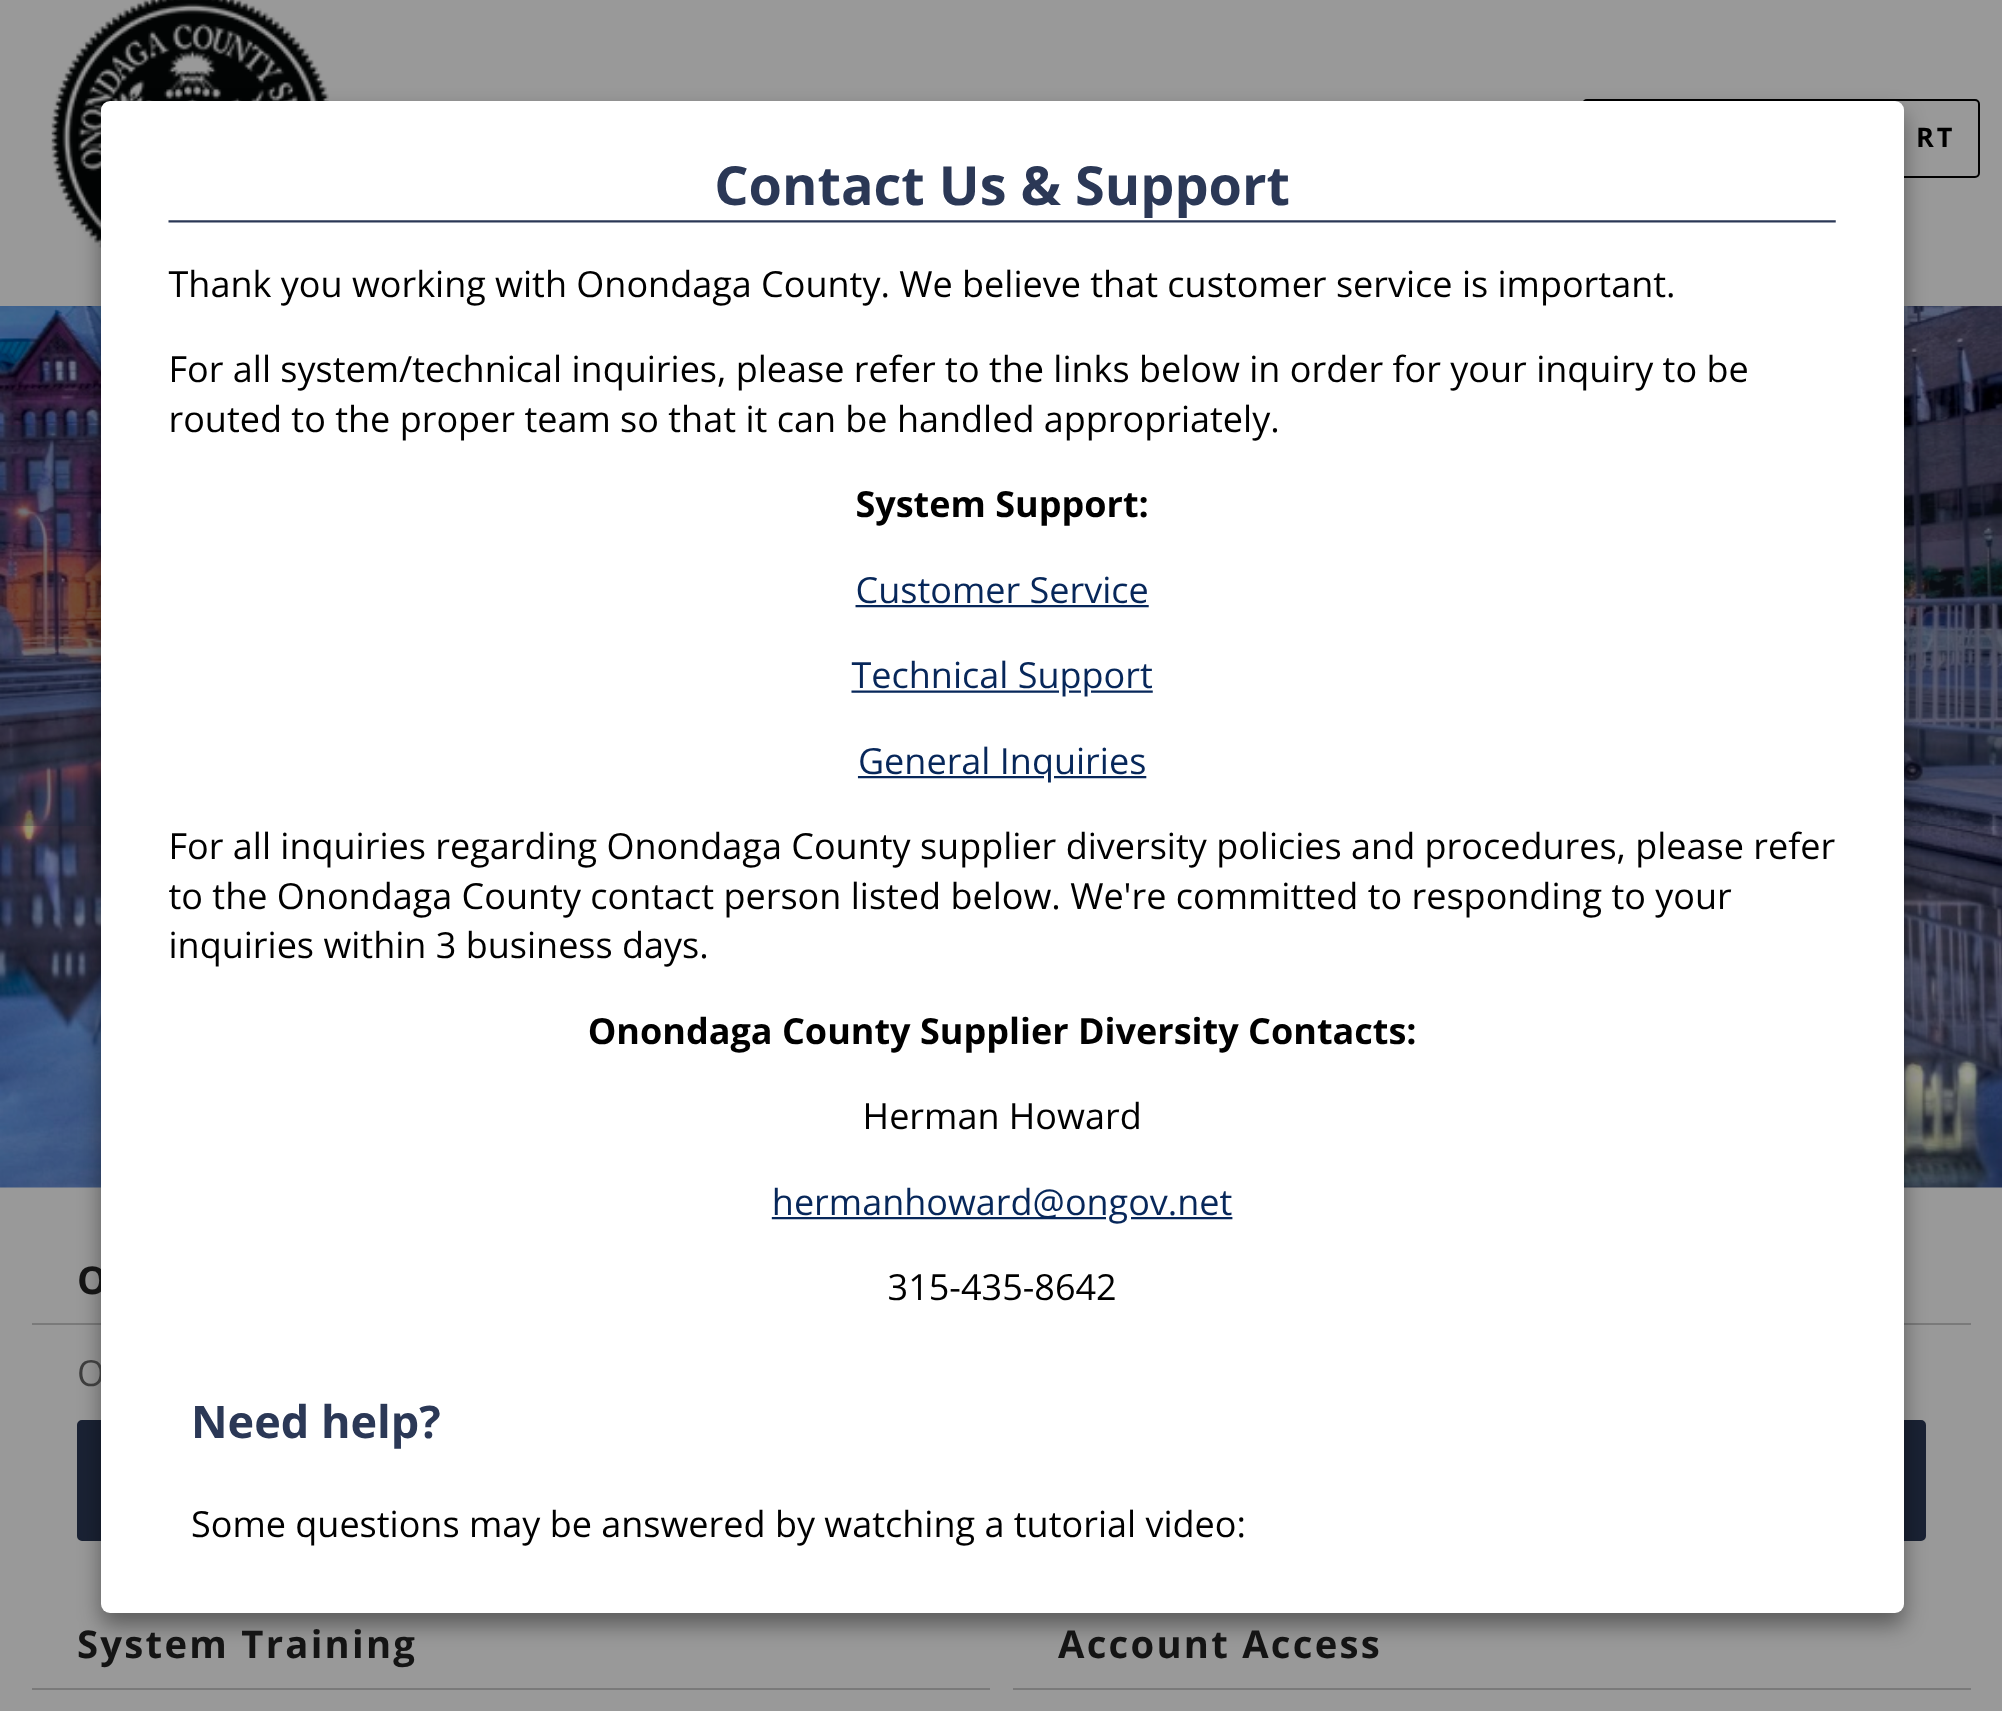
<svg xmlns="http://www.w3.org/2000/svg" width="2002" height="1711">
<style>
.a{font:bold 27px Open Sans;letter-spacing:3px;fill:#000}
.b{font:bold 38.25px Open Sans;letter-spacing:2.25px;fill:#141414}
.c{font:36px Open Sans;letter-spacing:-1px;fill:#3d3d3d}
</style>
<rect width="100%" height="100%" fill="#999"/>
<image href="1.png" x="0" y="306" width="2002" height="882"/>
<image href="2.png" x="51" y="0" width="278" height="248"/>
<rect fill="none" stroke="#000" stroke-width="2" x="1583" y="100" width="396" height="77" rx="4"/>
<path fill="#1c293a4d" d="M0 425h2002v401H0z"/>
<path fill="#7a7a7a" d="M32 1323h69v2H32z"/>
<rect fill="#1a2234" stroke="#1a2234" stroke-width="2" x="78" y="1421" width="866" height="119" rx="4"/>
<path fill="#7a7a7a" d="M1904 1323h67v2H1904z"/>
<rect fill="#1a2234" stroke="#1a2234" stroke-width="2" x="1059" y="1421" width="866" height="119" rx="4"/>
<rect fill="#00000066" filter="blur(11px)" x="101" y="113" width="1803" height="1512" rx="9"/>
<path fill="#7a7a7a" d="M32 1688h958v2H32z"/>
<path fill="#7a7a7a" d="M1013 1688h958v2H1013z"/>
<text class="a" x="1916" y="147">RT</text>
<text class="b" x="77" y="1294">O</text>
<text class="c" x="77" y="1386">O</text>
<rect fill="#fff" x="101" y="101" width="1803" height="1512" rx="9"/>
<image href="3.png" x="168" y="166" width="1668" height="1380"/>
<text class="b" x="77" y="1658">System Training</text>
<text class="b" x="1058" y="1658">Account Access</text>
</svg>
